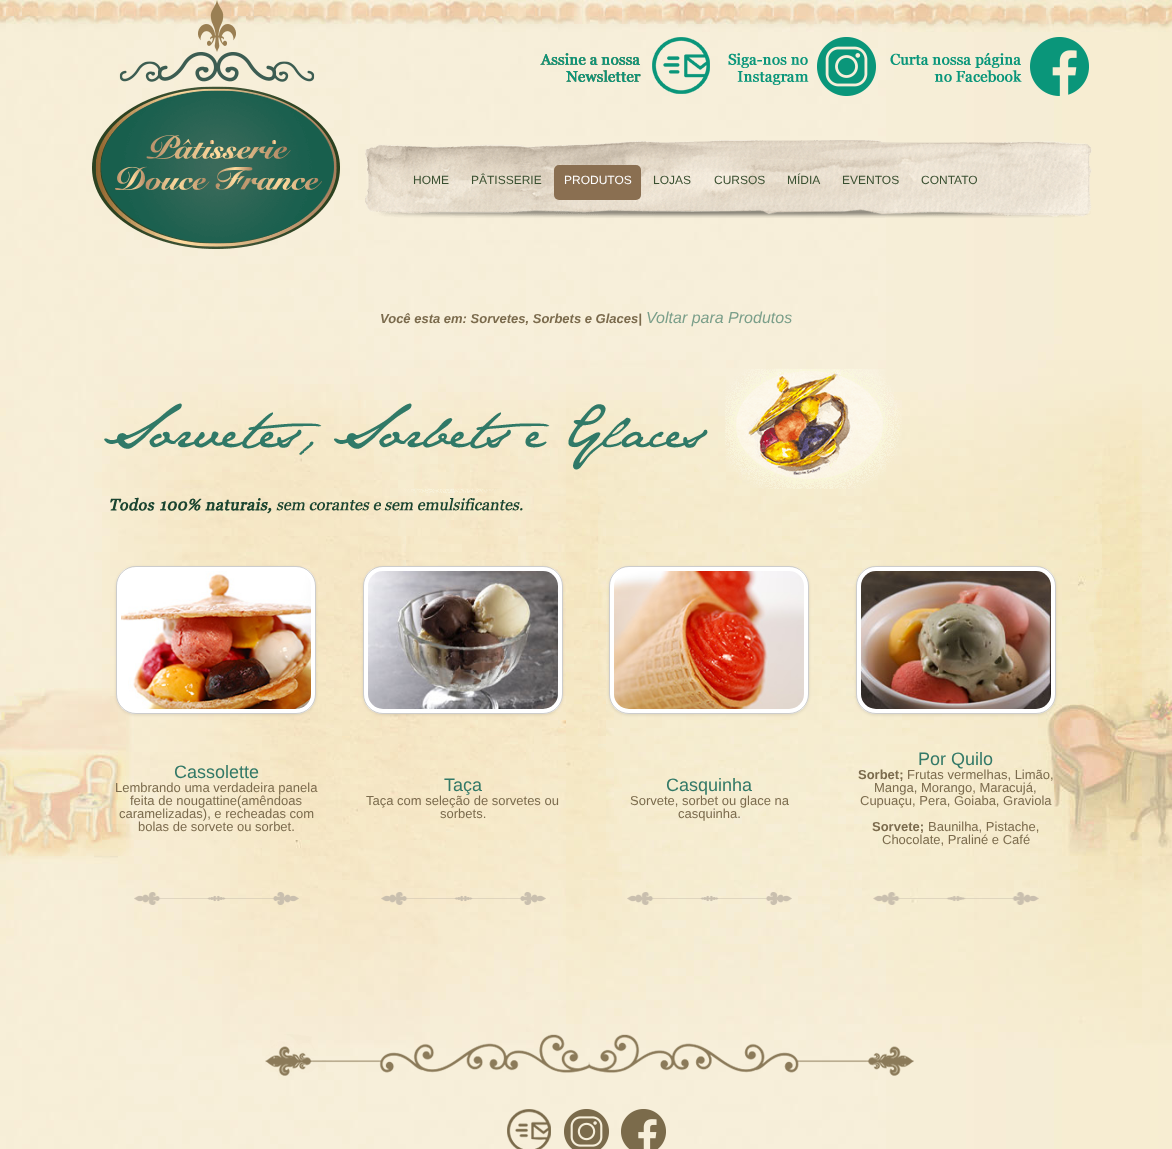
<svg xmlns="http://www.w3.org/2000/svg" width="1172" height="1149">
<style>
.a{font:12px Liberation Sans;fill:#394f30}
.b{font:12px Liberation Sans;fill:#fff}
.c{font:italic bold 13px Liberation Sans;fill:#7b6b4d}
.d{font:italic 16px Liberation Sans;fill:#7b9f8a}
.e{font:18px Liberation Sans;fill:#337967}
.f{font:13px Liberation Sans;fill:#7b6b4d}
.g{font:bold 13px Liberation Sans;fill:#7b6b4d}
</style>
<rect width="100%" height="100%" fill="#fff"/>
<image href="1.png" x="0" y="0" width="1172" height="1149"/>
<image href="2.png" x="92" y="0" width="248" height="249"/>
<image href="3.png" x="540" y="37" width="170" height="57"/>
<image href="4.png" x="728" y="37" width="148" height="59"/>
<image href="5.png" x="890" y="37" width="199" height="59"/>
<image href="6.png" x="365" y="140" width="727" height="78"/>
<rect fill="#8a6f51" x="554" y="165" width="87" height="35" rx="5"/>
<image href="7.png" x="104" y="369" width="798" height="145"/>
<rect fill="#0000001a" filter="blur(1.5px)" x="116" y="567" width="200" height="148" rx="20"/>
<rect fill="#fff" x="116" y="566" width="200" height="148" rx="20"/>
<rect fill="none" stroke="#00000033" x="116.5" y="566.5" width="199" height="147" rx="19.5"/>
<image href="8.png" x="121" y="571" width="190" height="138"/>
<rect fill="#0000001a" filter="blur(1.5px)" x="363" y="567" width="200" height="148" rx="20"/>
<rect fill="#fff" x="363" y="566" width="200" height="148" rx="20"/>
<rect fill="none" stroke="#00000033" x="363.5" y="566.5" width="199" height="147" rx="19.5"/>
<image href="9.png" x="368" y="571" width="190" height="138"/>
<rect fill="#0000001a" filter="blur(1.5px)" x="609" y="567" width="200" height="148" rx="20"/>
<rect fill="#fff" x="609" y="566" width="200" height="148" rx="20"/>
<rect fill="none" stroke="#00000033" x="609.5" y="566.5" width="199" height="147" rx="19.5"/>
<image href="10.png" x="614" y="571" width="190" height="138"/>
<rect fill="#0000001a" filter="blur(1.5px)" x="856" y="567" width="200" height="148" rx="20"/>
<rect fill="#fff" x="856" y="566" width="200" height="148" rx="20"/>
<rect fill="none" stroke="#00000033" x="856.5" y="566.5" width="199" height="147" rx="19.5"/>
<image href="11.png" x="861" y="571" width="190" height="138"/>
<image href="12.png" x="134" y="892" width="165" height="13"/>
<image href="13.png" x="381" y="892" width="165" height="13"/>
<image href="14.png" x="627" y="892" width="165" height="13"/>
<image href="15.png" x="873" y="892" width="166" height="13"/>
<image href="16.png" x="265" y="1034" width="649" height="42"/>
<image href="17.png" x="507" y="1109" width="44" height="40"/>
<image href="18.png" x="564" y="1109" width="45" height="40"/>
<image href="19.png" x="621" y="1109" width="45" height="40"/>
<text class="a" x="413" y="184">HOME</text>
<text class="a" x="471" y="184">PÂTISSERIE</text>
<text class="b" x="564" y="184">PRODUTOS</text>
<text class="a" x="653" y="184">LOJAS</text>
<text class="a" x="714" y="184">CURSOS</text>
<text class="a" x="787" y="184">MÍDIA</text>
<text class="a" x="842" y="184">EVENTOS</text>
<text class="a" x="921" y="184">CONTATO</text>
<text class="c" x="380" y="323">Você esta em: Sorvetes, Sorbets e Glaces|</text>
<text class="d" x="646" y="323">Voltar para Produtos</text>
<text class="e" x="174" y="778">Cassolette</text>
<text class="f" x="115" y="792">Lembrando uma verdadeira panela</text>
<text class="f" x="130" y="805">feita de nougattine(amêndoas</text>
<text class="f" x="119" y="818">caramelizadas), e recheadas com</text>
<text class="f" x="138" y="831">bolas de sorvete ou sorbet.</text>
<text class="e" x="444" y="791">Taça</text>
<text class="f" x="366" y="805">Taça com seleção de sorvetes ou</text>
<text class="f" x="440" y="818">sorbets.</text>
<text class="e" x="666" y="791">Casquinha</text>
<text class="f" x="630" y="805">Sorvete, sorbet ou glace na</text>
<text class="f" x="678" y="818">casquinha.</text>
<text class="e" x="918" y="765">Por Quilo</text>
<text class="g" x="858" y="779">Sorbet;</text>
<text class="f" x="907" y="779">Frutas vermelhas, Limão,</text>
<text class="f" x="874" y="792">Manga, Morango, Maracujá,</text>
<text class="f" x="860" y="805">Cupuaçu, Pera, Goiaba, Graviola</text>
<text class="g" x="872" y="831">Sorvete;</text>
<text class="f" x="928" y="831">Baunilha, Pistache,</text>
<text class="f" x="882" y="844">Chocolate, Praliné e Café</text>
</svg>
